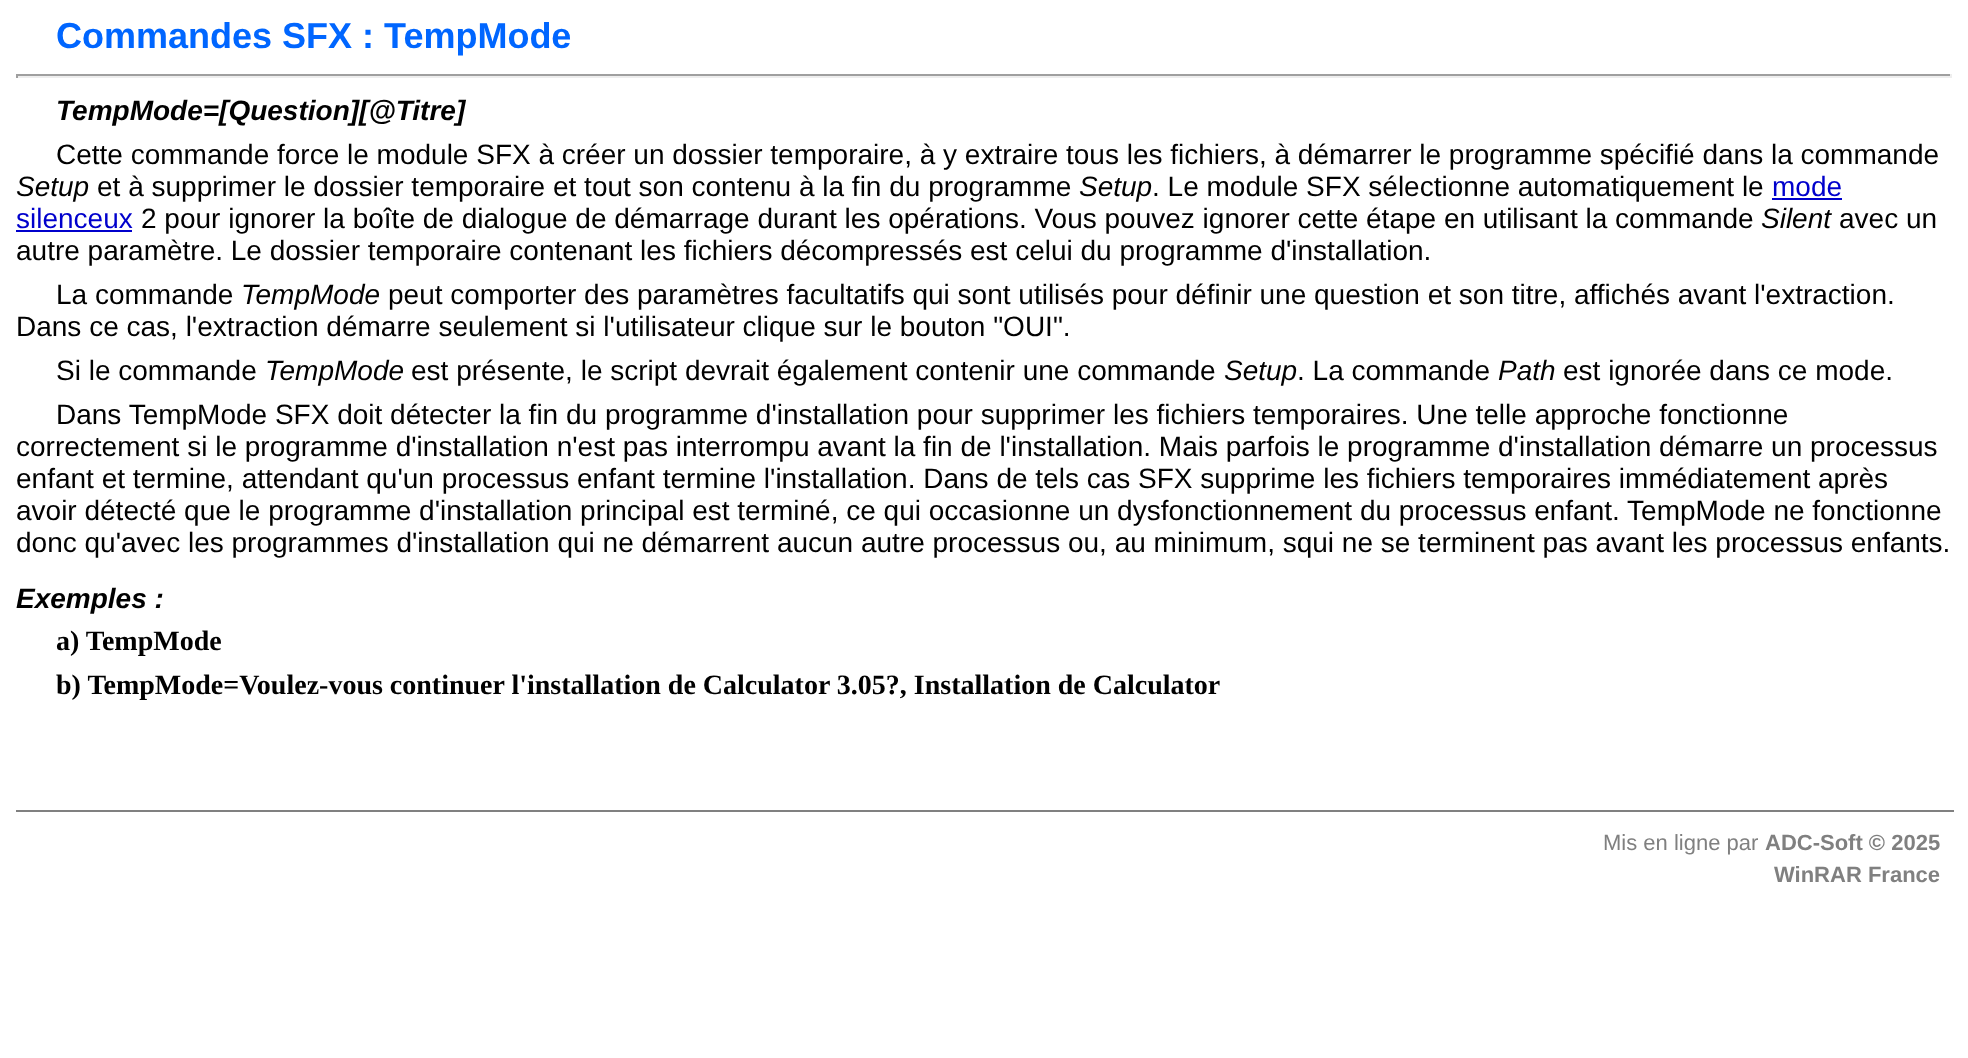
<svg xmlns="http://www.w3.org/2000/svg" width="1968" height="1058">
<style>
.a{font:bold 36px Liberation Sans;fill:#06f}
.b{font:italic bold 28px Liberation Sans;fill:#000}
.c{font:28px Liberation Sans;fill:#000}
.d{font:italic 28px Liberation Sans;fill:#000}
.e{font:28px Liberation Sans;fill:#00c}
.f{font:bold 28px Liberation Serif;fill:#000}
.g{font:22px Liberation Sans;fill:#808080}
.h{font:bold 22px Liberation Sans;fill:#808080}
</style>
<rect width="100%" height="100%" fill="#fff"/>
<path fill="#9f9f9f" d="M16 74h1936v2H16z"/>
<path fill="#eee" d="M1950 74h2v4H1950z"/>
<path fill="#eee" d="M16 76h1936v2H16z"/>
<path fill="#9f9f9f" d="M16 74h2v4H16z"/>
<path fill="#00c" d="M1772 198h70v2H1772z"/>
<path fill="#00c" d="M16 230h116v2H16z"/>
<path fill="#808080" d="M16 810h1938v2H16z"/>
<text class="a" x="56" y="48">Commandes SFX : TempMode</text>
<text class="b" x="56" y="120">TempMode=[Question][@Titre]</text>
<text class="c" x="56" y="164">Cette commande force le module SFX à créer un dossier temporaire, à y extraire tous les fichiers, à démarrer le programme spécifié dans la commande</text>
<text class="d" x="16" y="196">Setup</text>
<text class="c" x="97" y="196">et à supprimer le dossier temporaire et tout son contenu à la fin du programme</text>
<text class="d" x="1079" y="196">Setup</text>
<text class="c" x="1152" y="196">. Le module SFX sélectionne automatiquement le</text>
<text class="e" x="1772" y="196">mode</text>
<text class="e" x="16" y="228">silenceux</text>
<text class="c" x="141" y="228">2 pour ignorer la boîte de dialogue de démarrage durant les opérations. Vous pouvez ignorer cette étape en utilisant la commande</text>
<text class="d" x="1761" y="228">Silent</text>
<text class="c" x="1839" y="228">avec un</text>
<text class="c" x="16" y="260">autre paramètre. Le dossier temporaire contenant les fichiers décompressés est celui du programme d'installation.</text>
<text class="c" x="56" y="304">La commande</text>
<text class="d" x="241" y="304">TempMode</text>
<text class="c" x="388" y="304">peut comporter des paramètres facultatifs qui sont utilisés pour définir une question et son titre, affichés avant l'extraction.</text>
<text class="c" x="16" y="336">Dans ce cas, l'extraction démarre seulement si l'utilisateur clique sur le bouton "OUI".</text>
<text class="c" x="56" y="380">Si le commande</text>
<text class="d" x="265" y="380">TempMode</text>
<text class="c" x="411" y="380">est présente, le script devrait également contenir une commande</text>
<text class="d" x="1224" y="380">Setup</text>
<text class="c" x="1297" y="380">. La commande</text>
<text class="d" x="1498" y="380">Path</text>
<text class="c" x="1563" y="380">est ignorée dans ce mode.</text>
<text class="c" x="56" y="424">Dans TempMode SFX doit détecter la fin du programme d'installation pour supprimer les fichiers temporaires. Une telle approche fonctionne</text>
<text class="c" x="16" y="456">correctement si le programme d'installation n'est pas interrompu avant la fin de l'installation. Mais parfois le programme d'installation démarre un processus</text>
<text class="c" x="16" y="488">enfant et termine, attendant qu'un processus enfant termine l'installation. Dans de tels cas SFX supprime les fichiers temporaires immédiatement après</text>
<text class="c" x="16" y="520">avoir détecté que le programme d'installation principal est terminé, ce qui occasionne un dysfonctionnement du processus enfant. TempMode ne fonctionne</text>
<text class="c" x="16" y="552">donc qu'avec les programmes d'installation qui ne démarrent aucun autre processus ou, au minimum, squi ne se terminent pas avant les processus enfants.</text>
<text class="b" x="16" y="608">Exemples :</text>
<text class="f" x="56" y="650">a) TempMode</text>
<text class="f" x="56" y="694">b) TempMode=Voulez-vous continuer l'installation de Calculator 3.05?, Installation de Calculator</text>
<text class="g" x="1603" y="850">Mis en ligne par</text>
<text class="h" x="1765" y="850">ADC-Soft © 2025</text>
<text class="h" x="1774" y="882">WinRAR France</text>
</svg>
